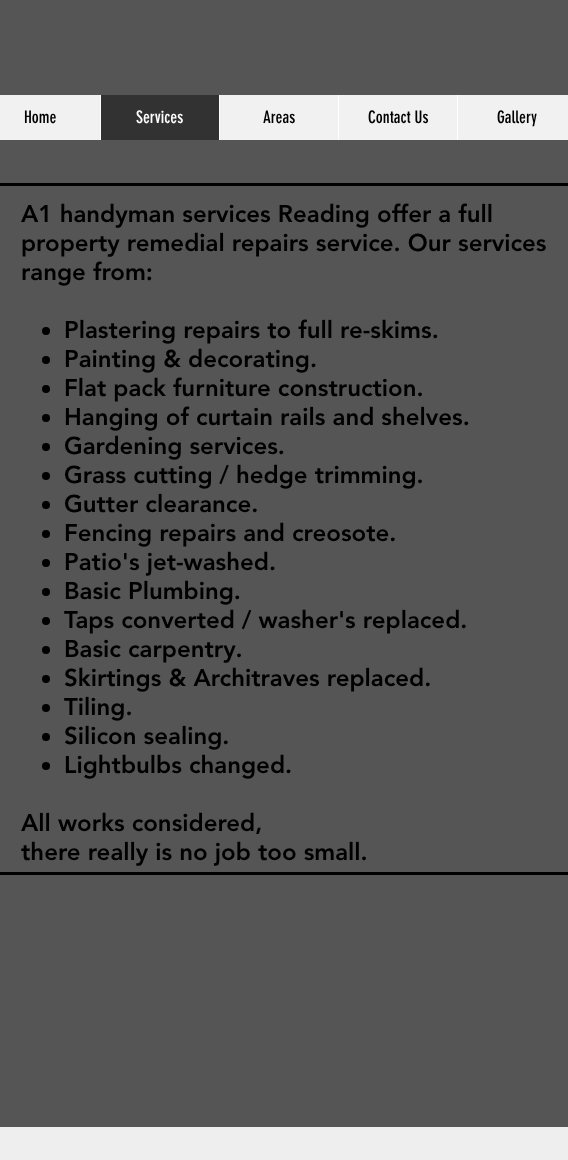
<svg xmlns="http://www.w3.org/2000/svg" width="568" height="1160">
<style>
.a{font:17px 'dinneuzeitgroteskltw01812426';fill:#000}
.b{font:17px 'dinneuzeitgroteskltw01812426';fill:#fff}
.c{font:900 24px 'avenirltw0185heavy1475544';fill:#000}
</style>
<rect width="100%" height="100%" fill="#555"/>
<path fill="#f1f1f1" d="M0 95h568v45H0z"/>
<path fill="#323232" d="M101 95h118v45H101z"/>
<path fill="#fff" d="M100 95h1v45H100z"/>
<path fill="#fff" d="M219 95h1v45H219z"/>
<path fill="#fff" d="M338 95h1v45H338z"/>
<path fill="#fff" d="M457 95h1v45H457z"/>
<circle fill="#000" cx="46" cy="331" r="4"/>
<circle fill="#000" cx="46" cy="360" r="4"/>
<circle fill="#000" cx="46" cy="389" r="4"/>
<circle fill="#000" cx="46" cy="418" r="4"/>
<circle fill="#000" cx="46" cy="447" r="4"/>
<circle fill="#000" cx="46" cy="476" r="4"/>
<circle fill="#000" cx="46" cy="505" r="4"/>
<circle fill="#000" cx="46" cy="534" r="4"/>
<circle fill="#000" cx="46" cy="563" r="4"/>
<circle fill="#000" cx="46" cy="592" r="4"/>
<circle fill="#000" cx="46" cy="621" r="4"/>
<circle fill="#000" cx="46" cy="650" r="4"/>
<circle fill="#000" cx="46" cy="679" r="4"/>
<circle fill="#000" cx="46" cy="708" r="4"/>
<circle fill="#000" cx="46" cy="737" r="4"/>
<circle fill="#000" cx="46" cy="766" r="4"/>
<path fill="none" stroke="#000" stroke-width="3" d="M-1.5 184.5h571v689H-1.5z"/>
<path fill="#eee" d="M0 1127h568v33H0z"/>
<text class="a" x="24" y="123">Home</text>
<text class="b" x="136" y="123">Services</text>
<text class="a" x="263" y="123">Areas</text>
<text class="a" x="368" y="123">Contact Us</text>
<text class="a" x="497" y="123">Gallery</text>
<text class="c" x="21" y="222">A1 handyman services Reading offer a full</text>
<text class="c" x="21" y="251">property remedial repairs service. Our services</text>
<text class="c" x="21" y="280">range from:</text>
<text class="c" x="64" y="338">Plastering repairs to full re-skims.</text>
<text class="c" x="64" y="367">Painting &amp; decorating.</text>
<text class="c" x="64" y="396">Flat pack furniture construction.</text>
<text class="c" x="64" y="425">Hanging of curtain rails and shelves.</text>
<text class="c" x="64" y="454">Gardening services.</text>
<text class="c" x="64" y="483">Grass cutting / hedge trimming.</text>
<text class="c" x="64" y="512">Gutter clearance.</text>
<text class="c" x="64" y="541">Fencing repairs and creosote.</text>
<text class="c" x="64" y="570">Patio's jet-washed.</text>
<text class="c" x="64" y="599">Basic Plumbing.</text>
<text class="c" x="64" y="628">Taps converted / washer's replaced.</text>
<text class="c" x="64" y="657">Basic carpentry.</text>
<text class="c" x="64" y="686">Skirtings &amp; Architraves replaced.</text>
<text class="c" x="64" y="715">Tiling.</text>
<text class="c" x="64" y="744">Silicon sealing.</text>
<text class="c" x="64" y="773">Lightbulbs changed.</text>
<text class="c" x="21" y="831">All works considered,</text>
<text class="c" x="21" y="860">there really is no job too small.</text>
</svg>
